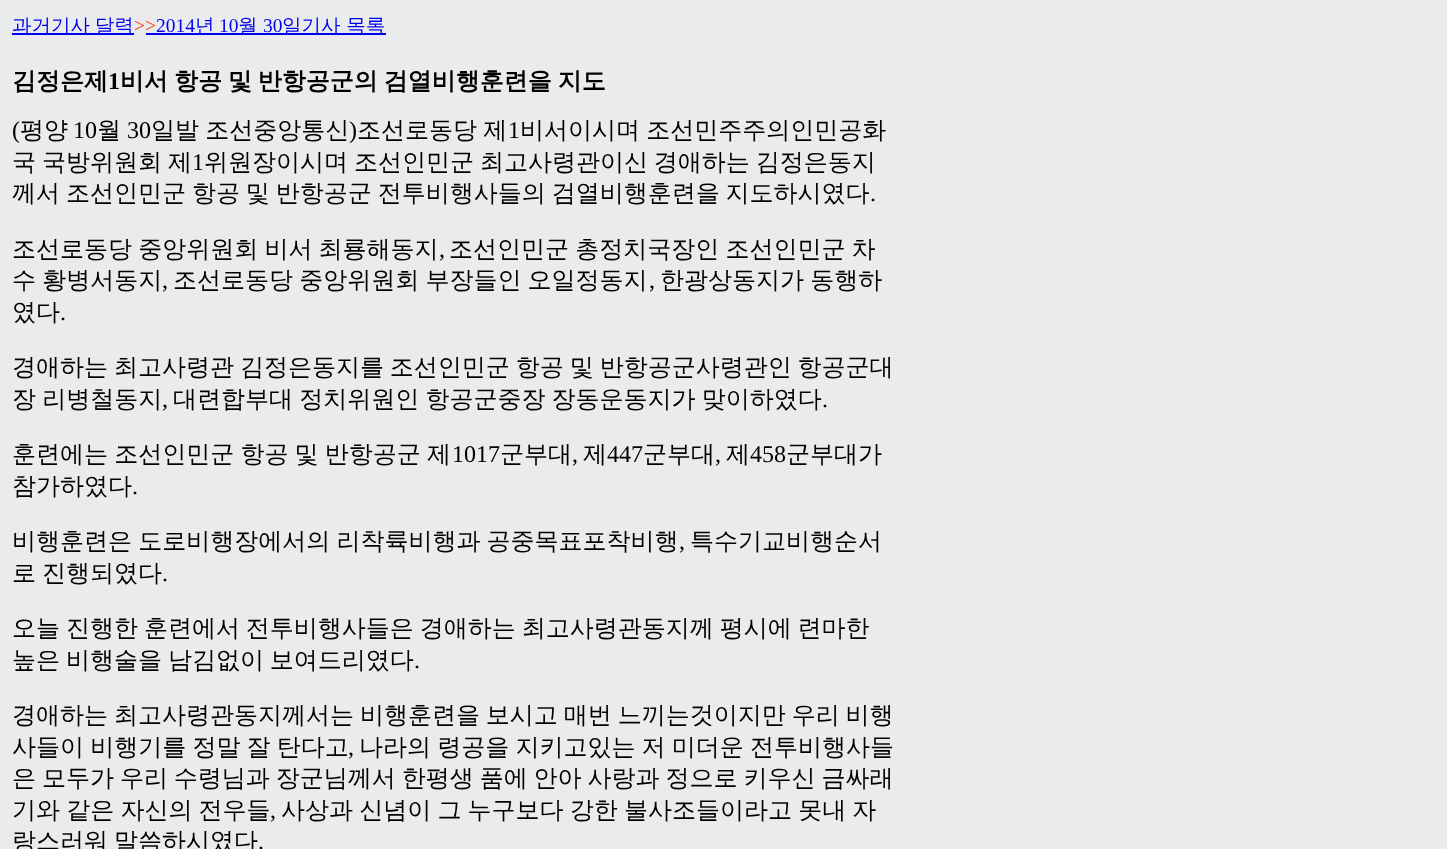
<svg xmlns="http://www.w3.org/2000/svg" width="1447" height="849">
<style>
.a{font:500 19.5px WenQuanYi Zen Hei;fill:#00e}
.b{font:19.5px Liberation Serif;fill:#f30}
.c{font:19.5px Liberation Serif;fill:#00e}
.d{font:bold 24px WenQuanYi Zen Hei;fill:#000}
.e{font:bold 24px Liberation Serif;fill:#000}
.f{font:24px Liberation Serif;fill:#000}
.g{font:500 24px WenQuanYi Zen Hei;fill:#000}
</style>
<rect width="100%" height="100%" fill="#eaebed"/>
<path fill="#00e" d="M12 33h122v2H12z"/>
<path fill="#00e" d="M146 33h240v2H146z"/>
<text class="a" x="12" y="32" word-spacing="-1">과거기사 달력</text>
<text class="b" x="134" y="32">&gt;&gt;</text>
<text class="c" x="156" y="32">2014</text>
<text class="a" x="195" y="32">년</text>
<text class="c" x="219" y="32">10</text>
<text class="a" x="238" y="32">월</text>
<text class="c" x="263" y="32">30</text>
<text class="a" x="282" y="32">일기사 목록</text>
<text class="d" x="12" y="89">김정은제</text>
<text class="e" x="108" y="89">1</text>
<text class="d" x="120" y="89" word-spacing="-1.25">비서 항공 및 반항공군의 검열비행훈련을 지도</text>
<text class="f" x="12" y="138">(</text>
<text class="g" x="20" y="138">평양</text>
<text class="f" x="73" y="138">10</text>
<text class="g" x="97" y="138">월</text>
<text class="f" x="127" y="138">30</text>
<text class="g" x="151" y="138" word-spacing="-1">일발 조선중앙통신</text>
<text class="f" x="349" y="138">)</text>
<text class="g" x="357" y="138" word-spacing="-1">조선로동당 제</text>
<text class="f" x="508" y="138">1</text>
<text class="g" x="520" y="138" word-spacing="-1">비서이시며 조선민주주의인민공화</text>
<text class="g" x="12" y="170" word-spacing="-1.25">국 국방위원회 제</text>
<text class="f" x="192" y="170">1</text>
<text class="g" x="204" y="170" word-spacing="-1.25">위원장이시며 조선인민군 최고사령관이신 경애하는 김정은동지</text>
<text class="g" x="12" y="201" word-spacing="-1.25">께서 조선인민군 항공 및 반항공군 전투비행사들의 검열비행훈련을 지도하시였다</text>
<text class="f" x="870" y="201">.</text>
<text class="g" x="12" y="257" word-spacing="-1">조선로동당 중앙위원회 비서 최룡해동지</text>
<text class="f" x="439" y="257">,</text>
<text class="g" x="449" y="257" word-spacing="-1">조선인민군 총정치국장인 조선인민군 차</text>
<text class="g" x="12" y="288" word-spacing="-1">수 황병서동지</text>
<text class="f" x="162" y="288">,</text>
<text class="g" x="173" y="288" word-spacing="-1">조선로동당 중앙위원회 부장들인 오일정동지</text>
<text class="f" x="649" y="288">,</text>
<text class="g" x="660" y="288" word-spacing="-1">한광상동지가 동행하</text>
<text class="g" x="12" y="320">였다</text>
<text class="f" x="60" y="320">.</text>
<text class="g" x="12" y="375" word-spacing="-1.25">경애하는 최고사령관 김정은동지를 조선인민군 항공 및 반항공군사령관인 항공군대</text>
<text class="g" x="12" y="407" word-spacing="-1">장 리병철동지</text>
<text class="f" x="162" y="407">,</text>
<text class="g" x="173" y="407" word-spacing="-1">대련합부대 정치위원인 항공군중장 장동운동지가 맞이하였다</text>
<text class="f" x="822" y="407">.</text>
<text class="g" x="12" y="462" word-spacing="-1">훈련에는 조선인민군 항공 및 반항공군 제</text>
<text class="f" x="452" y="462">1017</text>
<text class="g" x="500" y="462">군부대</text>
<text class="f" x="572" y="462">,</text>
<text class="g" x="583" y="462">제</text>
<text class="f" x="607" y="462">447</text>
<text class="g" x="643" y="462">군부대</text>
<text class="f" x="715" y="462">,</text>
<text class="g" x="726" y="462">제</text>
<text class="f" x="750" y="462">458</text>
<text class="g" x="786" y="462">군부대가</text>
<text class="g" x="12" y="494">참가하였다</text>
<text class="f" x="132" y="494">.</text>
<text class="g" x="12" y="549" word-spacing="-1">비행훈련은 도로비행장에서의 리착륙비행과 공중목표포착비행</text>
<text class="f" x="679" y="549">,</text>
<text class="g" x="690" y="549">특수기교비행순서</text>
<text class="g" x="12" y="581" word-spacing="-1.25">로 진행되였다</text>
<text class="f" x="162" y="581">.</text>
<text class="g" x="12" y="636" word-spacing="-1.25">오늘 진행한 훈련에서 전투비행사들은 경애하는 최고사령관동지께 평시에 련마한</text>
<text class="g" x="12" y="668" word-spacing="-1.25">높은 비행술을 남김없이 보여드리였다</text>
<text class="f" x="414" y="668">.</text>
<text class="g" x="12" y="723" word-spacing="-1.25">경애하는 최고사령관동지께서는 비행훈련을 보시고 매번 느끼는것이지만 우리 비행</text>
<text class="g" x="12" y="755" word-spacing="-1">사들이 비행기를 정말 잘 탄다고</text>
<text class="f" x="348" y="755">,</text>
<text class="g" x="359" y="755" word-spacing="-1">나라의 령공을 지키고있는 저 미더운 전투비행사들</text>
<text class="g" x="12" y="786" word-spacing="-1.25">은 모두가 우리 수령님과 장군님께서 한평생 품에 안아 사랑과 정으로 키우신 금싸래</text>
<text class="g" x="12" y="818" word-spacing="-1">기와 같은 자신의 전우들</text>
<text class="f" x="270" y="818">,</text>
<text class="g" x="281" y="818" word-spacing="-1">사상과 신념이 그 누구보다 강한 불사조들이라고 못내 자</text>
<text class="g" x="12" y="849" word-spacing="-1.25">랑스러워 말씀하시였다</text>
<text class="f" x="258" y="849">.</text>
</svg>
